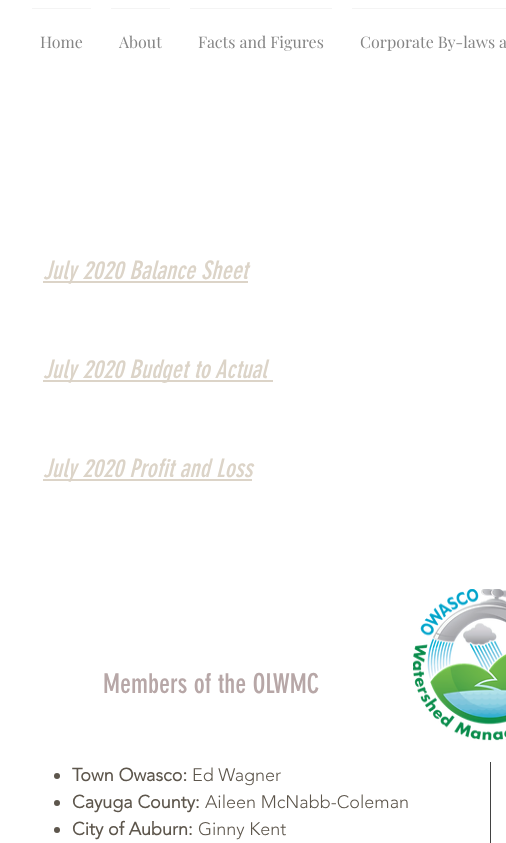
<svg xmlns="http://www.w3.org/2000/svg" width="506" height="843">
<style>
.a{font:16px Playfair Display;fill:#858585}
.b{font:italic 25px 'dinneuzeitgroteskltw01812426';fill:#dcd4c8}
.c{font:27px 'dinneuzeitgroteskltw01812426';fill:#b7a7a7}
.d{font:bold 18px 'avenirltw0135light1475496';fill:#5d564c}
.e{font:300 18px 'avenirltw0135light1475496';fill:#5d564c}
</style>
<rect width="100%" height="100%" fill="#fff"/>
<path fill="#f4f4f4" d="M32 8h59v1H32z"/>
<path fill="#f4f4f4" d="M111 8h59v1H111z"/>
<path fill="#f4f4f4" d="M190 8h142v1H190z"/>
<path fill="#f4f4f4" d="M352 8h154v1H352z"/>
<path fill="#dcd4c8" d="M43 281h205v2H43z"/>
<path fill="#dcd4c8" d="M43 380h230v2H43z"/>
<path fill="#dcd4c8" d="M43 479h209v2H43z"/>
<image href="1.png" x="413" y="589" width="93" height="152"/>
<circle fill="#5d564c" cx="57" cy="776" r="3"/>
<circle fill="#5d564c" cx="57" cy="803" r="3"/>
<circle fill="#5d564c" cx="57" cy="830" r="3"/>
<path fill="#424242" d="M490 762h1v81H490z"/>
<text class="a" x="40" y="48">Home</text>
<text class="a" x="119" y="48">About</text>
<text class="a" x="198" y="48">Facts and Figures</text>
<text class="a" x="360" y="48">Corporate By-laws a</text>
<text class="b" x="43" y="279">July 2020 Balance Sheet</text>
<text class="b" x="43" y="378">July 2020 Budget to Actual</text>
<text class="b" x="43" y="477">July 2020 Profit and Loss</text>
<text class="c" x="103" y="693">Members of the OLWMC</text>
<text class="d" x="72" y="781">Town Owasco:</text>
<text class="e" x="192" y="781">Ed Wagner</text>
<text class="d" x="72" y="808">Cayuga County:</text>
<text class="e" x="205" y="808">Aileen McNabb-Coleman</text>
<text class="d" x="72" y="835">City of Auburn:</text>
<text class="e" x="198" y="835">Ginny Kent</text>
</svg>
